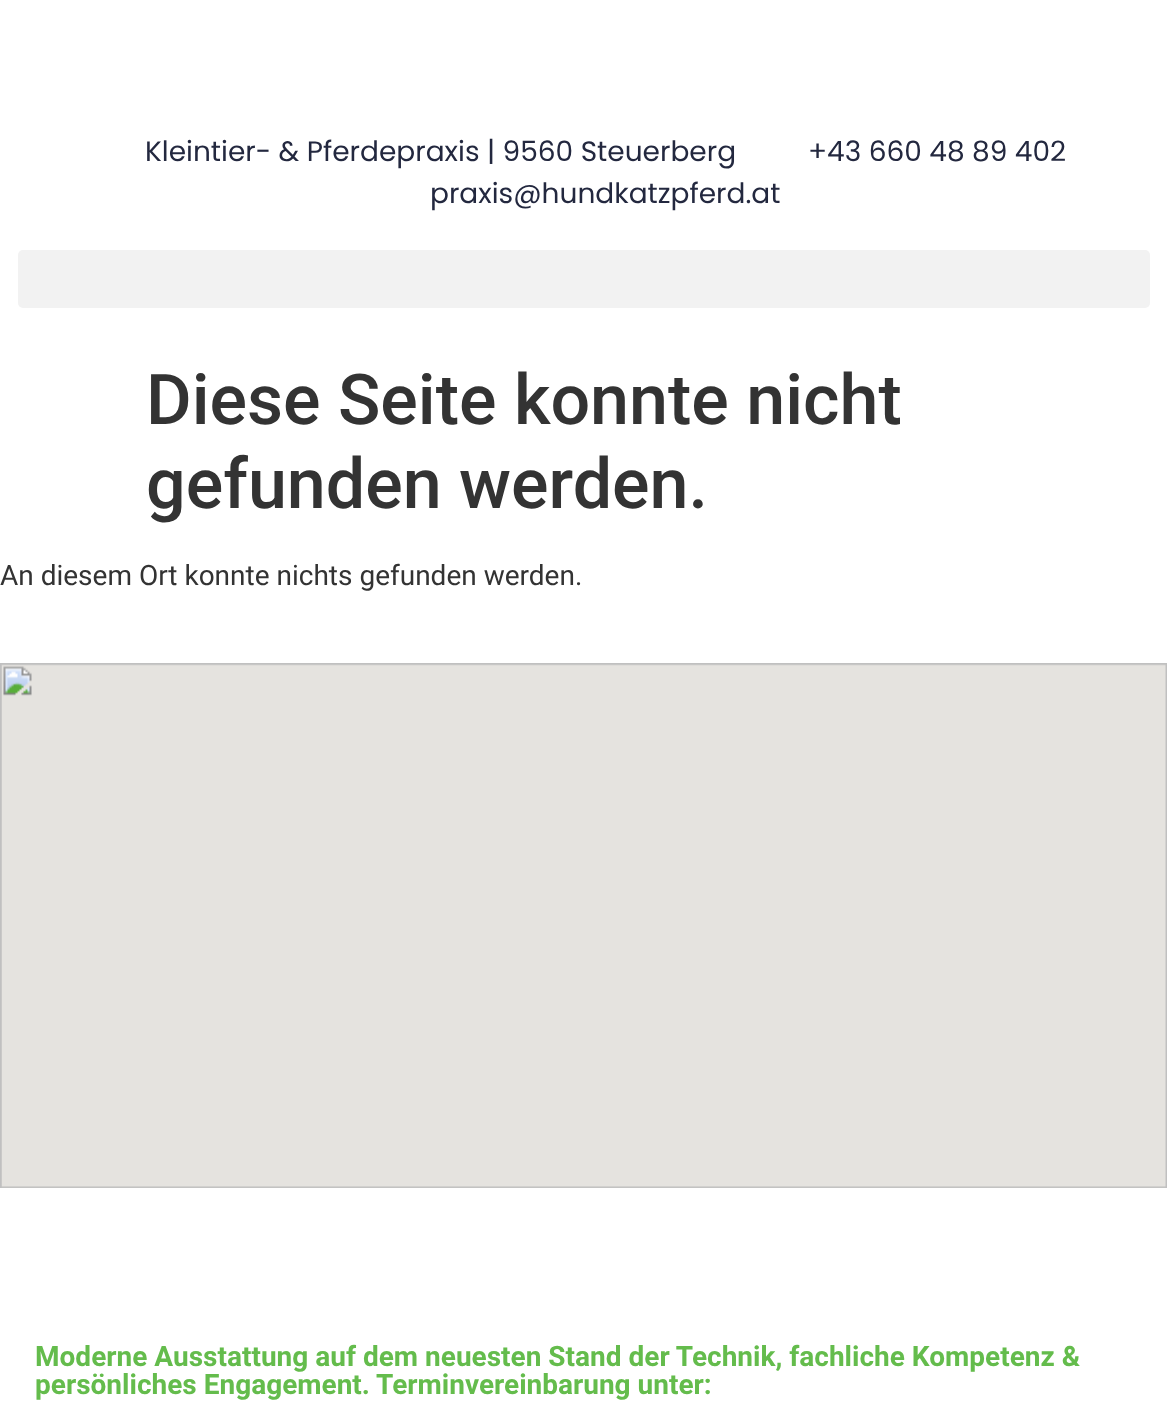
<svg xmlns="http://www.w3.org/2000/svg" width="1167" height="1402">
<style>
.a{font:28px Poppins;fill:#23283f}
.b{font:500 70px Roboto;fill:#333}
.c{font:28px Roboto;fill:#333}
.d{font:bold 28px Roboto;fill:#64bc4c}
</style>
<rect width="100%" height="100%" fill="#fff"/>
<rect fill="#f2f2f2" x="18" y="250" width="1132" height="58" rx="5"/>
<image href="1.png" x="0" y="663" width="1167" height="525"/>
<text class="a" x="145" y="161">Kleintier- &amp; Pferdepraxis | 9560 Steuerberg</text>
<text class="a" x="808" y="161">+43 660 48 89 402</text>
<text class="a" x="430" y="203">praxis@hundkatzpferd.at</text>
<text class="b" x="146" y="424">Diese Seite konnte nicht</text>
<text class="b" x="146" y="508">gefunden werden.</text>
<text class="c" x="0" y="585">An diesem Ort konnte nichts gefunden werden.</text>
<text class="d" x="35" y="1366">Moderne Ausstattung auf dem neuesten Stand der Technik, fachliche Kompetenz &amp;</text>
<text class="d" x="35" y="1394">persönliches Engagement. Terminvereinbarung unter:</text>
</svg>
